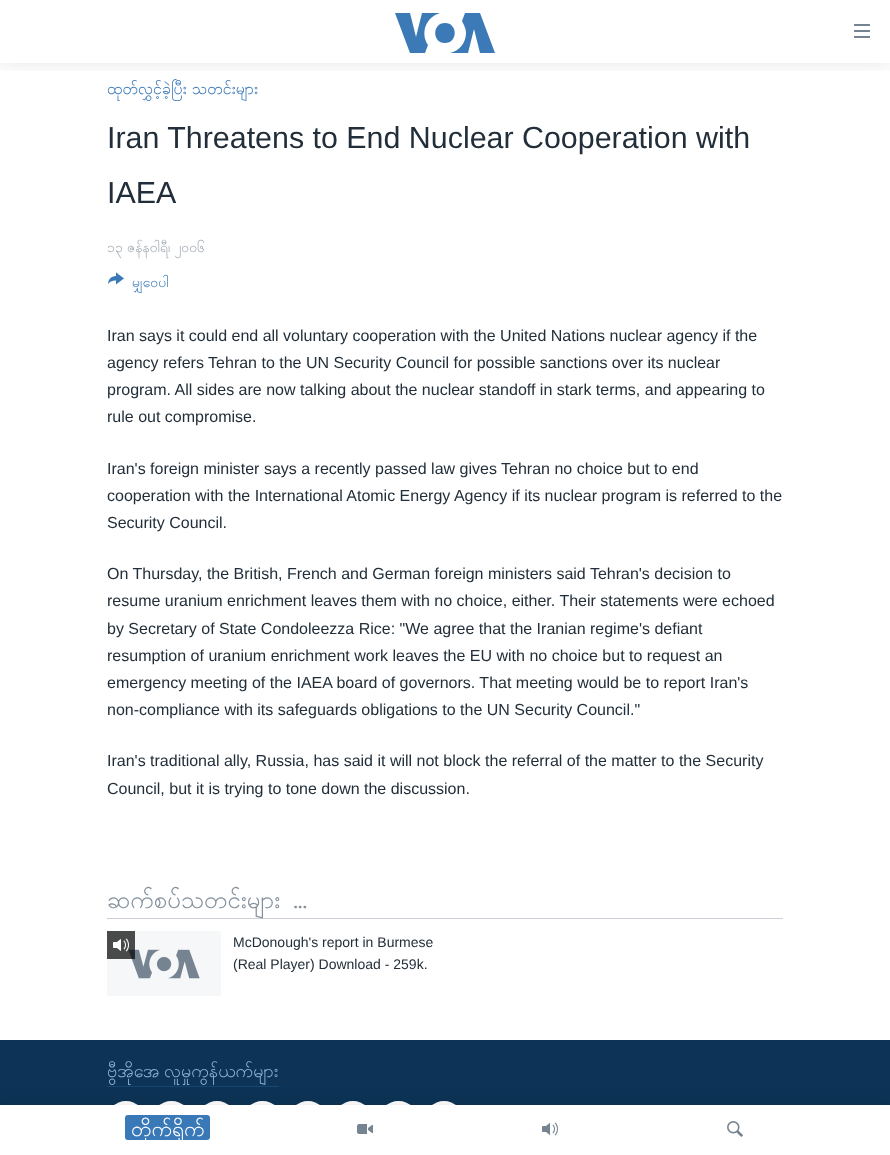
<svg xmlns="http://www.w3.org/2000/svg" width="890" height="1155">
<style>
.a{font:16px Padauk;fill:#3a79b7}
.b{font:30.4px Liberation Sans;fill:#222f3a}
.c{font:14px Padauk;fill:#a1aab4}
.d{font:14px Padauk;fill:#3a79b7}
.e{font:16px Liberation Sans;fill:#222f3a}
.f{font:24px Padauk;fill:#84919d}
.g{font:14px Liberation Sans;fill:#222f3a}
.h{font:18px Padauk;fill:#8db3d4}
.i{font:21px Padauk;fill:#fff}
</style>
<defs>
<clipPath id="clip1"><path d="M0 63h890v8H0z"/></clipPath>
</defs>
<rect width="100%" height="100%" fill="#fff"/>
<image href="1.png" x="108" y="272" width="16" height="13"/>
<path fill="#cbd1d6" d="M107 918h676v1H107z"/>
<path fill="#f6f7f8" d="M107 931h114v65H107z"/>
<image href="2.png" x="128" y="949" width="72" height="30"/>
<path fill="#000000b3" d="M107 931h28v28H107z"/>
<image href="3.png" x="113" y="938" width="16" height="14"/>
<path fill="#0d3456" d="M0 1040h890v65H0z"/>
<path fill="#134976" d="M107 1086h172v1H107z"/>
<rect fill="#fff" x="107" y="1101" width="38" height="39" rx="19"/>
<circle fill="#fff" cx="171.5" cy="1120.5" r="19.5"/>
<rect fill="#fff" x="198" y="1101" width="38" height="39" rx="19"/>
<circle fill="#fff" cx="262.5" cy="1120.5" r="19.5"/>
<rect fill="#fff" x="289" y="1101" width="38" height="39" rx="19"/>
<rect fill="#fff" x="334" y="1101" width="38" height="39" rx="19"/>
<circle fill="#fff" cx="398.5" cy="1120.5" r="19.5"/>
<rect fill="#fff" x="425" y="1101" width="38" height="39" rx="19"/>
<g clip-path="url(#clip1)">
<path fill="#0000001a" filter="blur(10px)" d="M0 0h890v63H0z"/>
</g>
<path fill="#3b79b7" d="M428 45l-3 8h-15l-15-40h15l6 24l6-24h18c-14 4-20 20-12 32zm17-22c-13 0-13 20 0 20c13 0 13-20 0-20zm21 10c0 10-7 18-16 20h18l6-24l6 24h15l-15-40h-15l-3 8c2 4 4 8 4 12z"/>
<image href="4.png" x="854" y="24" width="16" height="14"/>
<path fill="#0000001a" filter="blur(10px)" d="M0 1105h890v50H0z"/>
<path fill="#fff" d="M0 1105h890v50H0z"/>
<rect fill="#3a79b7" x="125" y="1115" width="85" height="25" rx="3"/>
<image href="5.png" x="357" y="1124" width="16" height="10"/>
<image href="6.png" x="542" y="1122" width="16" height="14"/>
<image href="7.png" x="727" y="1121" width="16" height="16"/>
<text class="a" x="107" y="94" word-spacing="-1">ထုတ်လွှင့်ခဲ့ပြီး သတင်းများ</text>
<text class="b" x="107" y="148">Iran Threatens to End Nuclear Cooperation with</text>
<text class="b" x="107" y="203">IAEA</text>
<text class="c" x="107" y="252" word-spacing="-1">၁၃ ဇန်နဝါရီ၊ ၂၀၀၆</text>
<text class="d" x="132" y="287">မျှဝေပါ</text>
<text class="e" x="107" y="341">Iran says it could end all voluntary cooperation with the United Nations nuclear agency if the</text>
<text class="e" x="107" y="368">agency refers Tehran to the UN Security Council for possible sanctions over its nuclear</text>
<text class="e" x="107" y="395">program. All sides are now talking about the nuclear standoff in stark terms, and appearing to</text>
<text class="e" x="107" y="422">rule out compromise.</text>
<text class="e" x="107" y="474">Iran's foreign minister says a recently passed law gives Tehran no choice but to end</text>
<text class="e" x="107" y="501">cooperation with the International Atomic Energy Agency if its nuclear program is referred to the</text>
<text class="e" x="107" y="528">Security Council.</text>
<text class="e" x="107" y="579">On Thursday, the British, French and German foreign ministers said Tehran's decision to</text>
<text class="e" x="107" y="606">resume uranium enrichment leaves them with no choice, either. Their statements were echoed</text>
<text class="e" x="107" y="634">by Secretary of State Condoleezza Rice: "We agree that the Iranian regime's defiant</text>
<text class="e" x="107" y="661">resumption of uranium enrichment work leaves the EU with no choice but to request an</text>
<text class="e" x="107" y="688">emergency meeting of the IAEA board of governors. That meeting would be to report Iran's</text>
<text class="e" x="107" y="715">non-compliance with its safeguards obligations to the UN Security Council."</text>
<text class="e" x="107" y="766">Iran's traditional ally, Russia, has said it will not block the referral of the matter to the Security</text>
<text class="e" x="107" y="794">Council, but it is trying to tone down the discussion.</text>
<text class="f" x="107" y="908" word-spacing="4">ဆက်စပ်သတင်းများ ...</text>
<text class="g" x="233" y="947">McDonough's report in Burmese</text>
<text class="g" x="233" y="969">(Real Player) Download - 259k.</text>
<text class="h" x="107" y="1077" word-spacing="-2">ဗွီအိုအေ လူမှုကွန်ယက်များ</text>
<text class="i" x="131" y="1136">တိုက်ရိုက်</text>
</svg>
